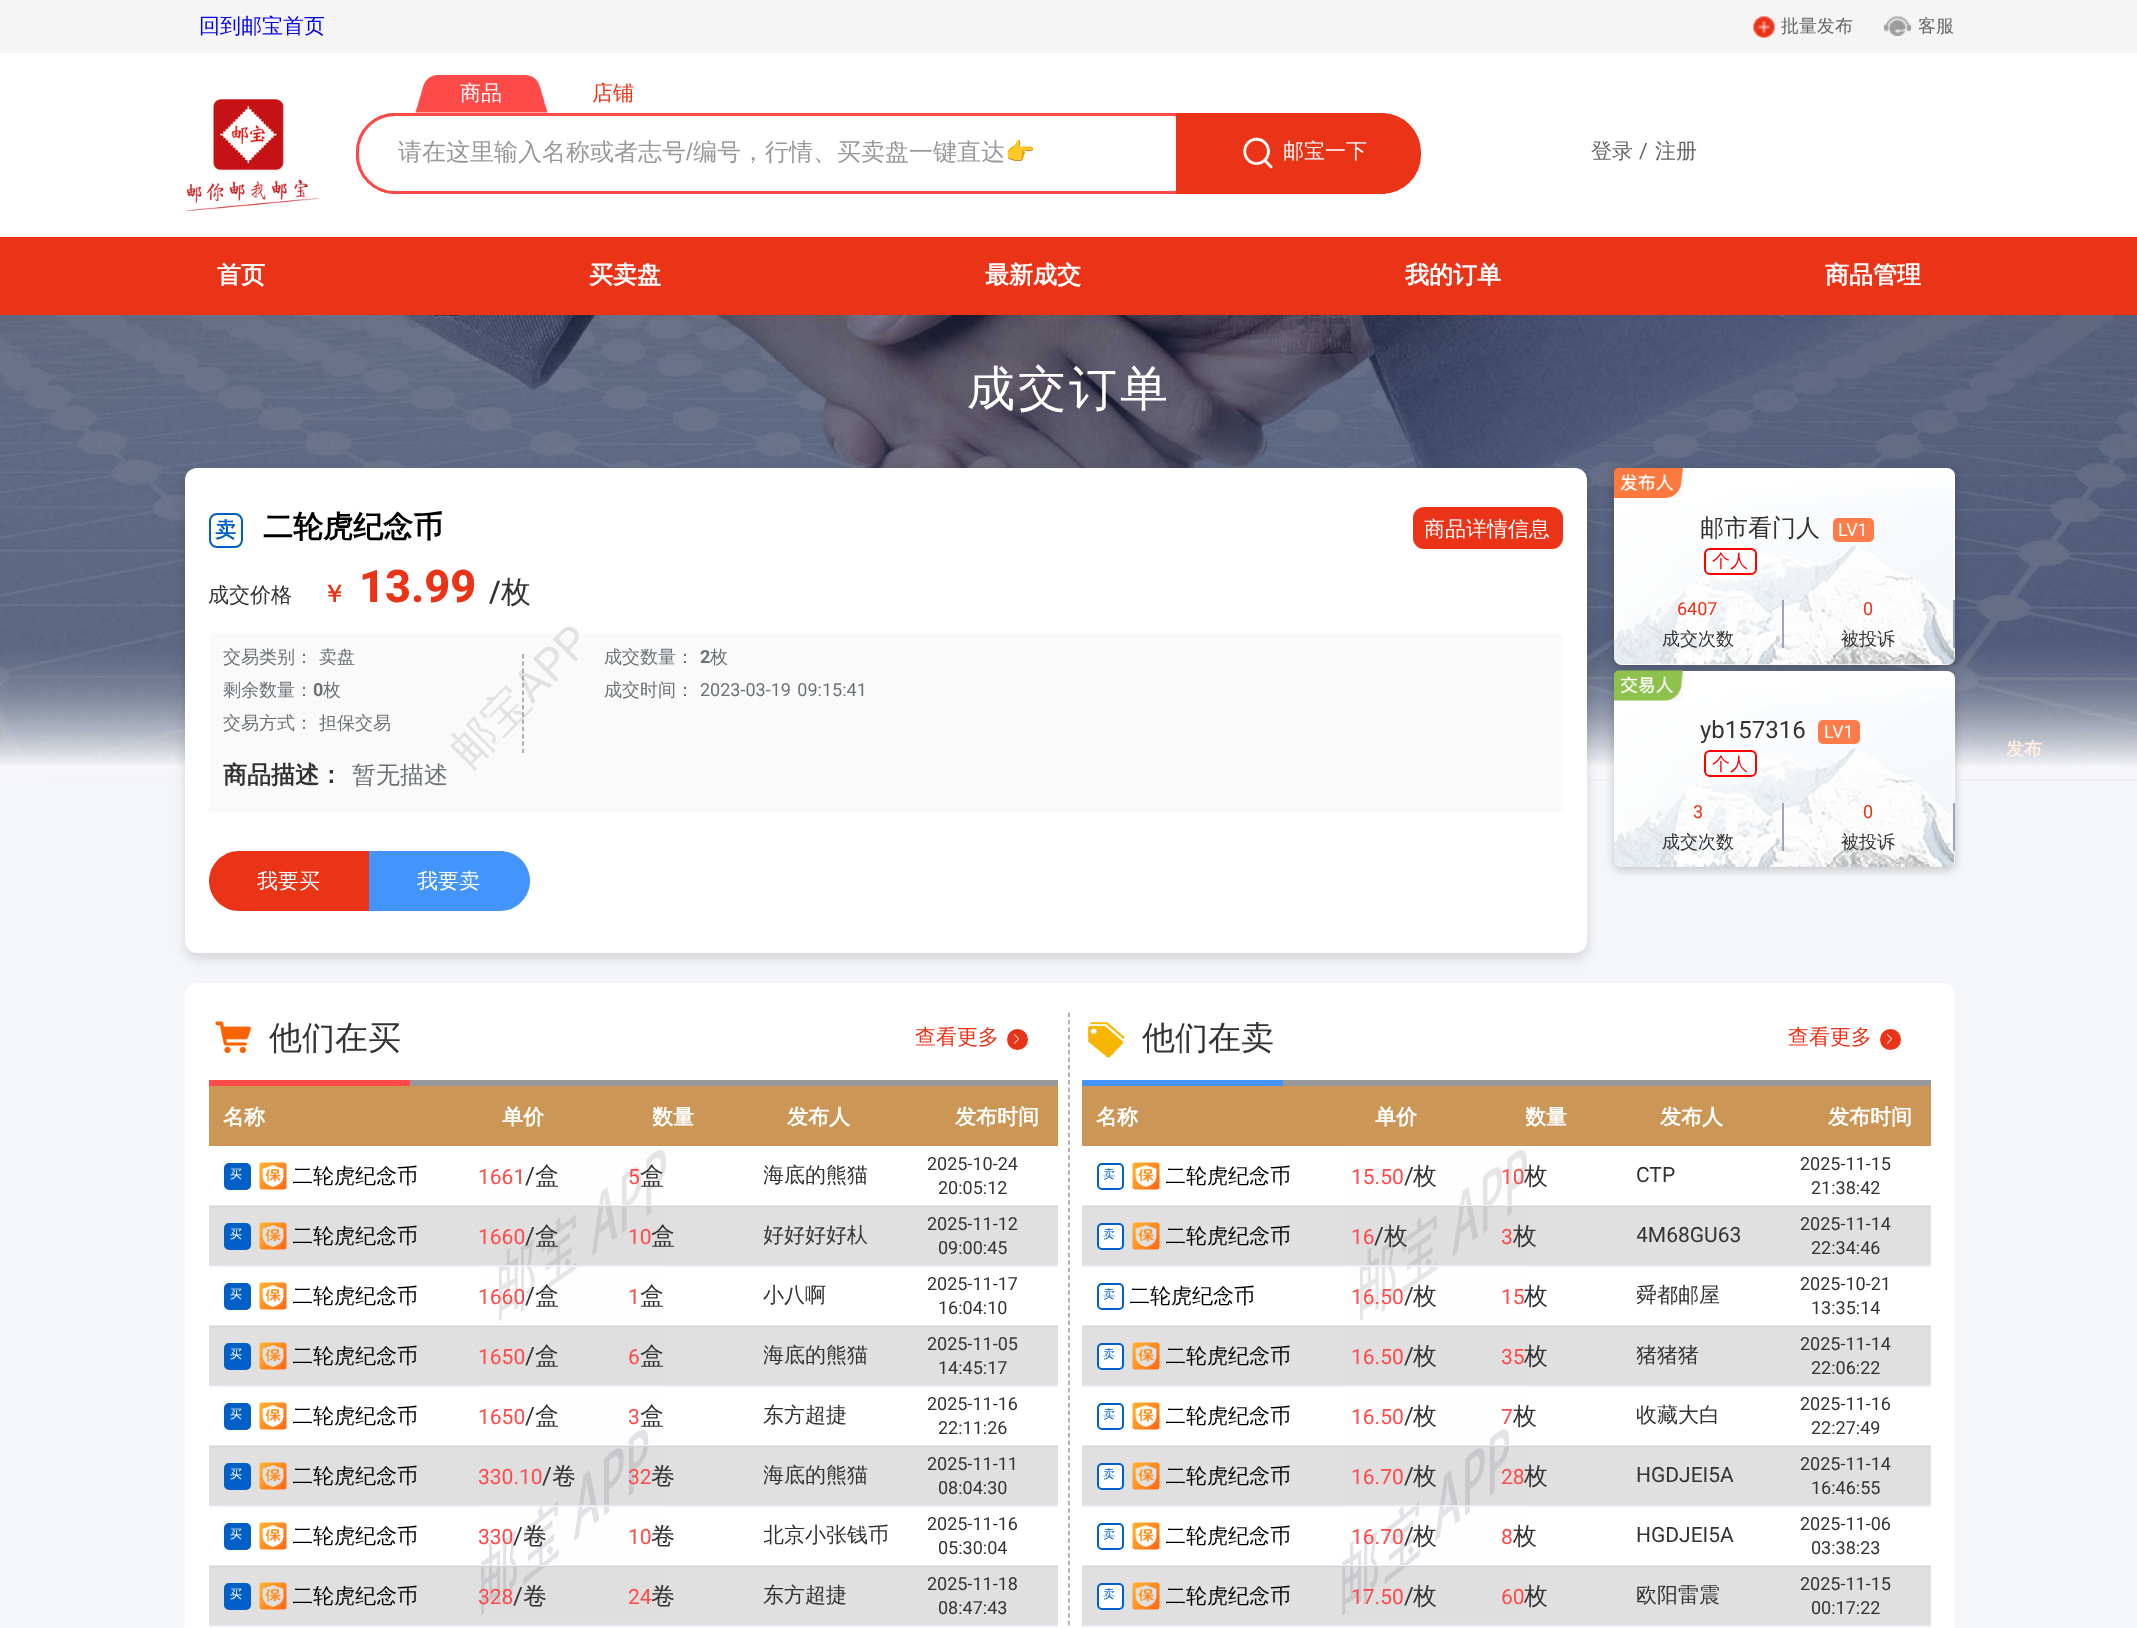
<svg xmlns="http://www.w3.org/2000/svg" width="2137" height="1628">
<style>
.a{font:500 21px WenQuanYi Zen Hei;fill:#00e}
.b{font:500 18px WenQuanYi Zen Hei;fill:#666}
.c{font:500 21px WenQuanYi Zen Hei;fill:#fff}
.d{font:500 21px WenQuanYi Zen Hei;fill:#eb3318}
.e{font:500 24px WenQuanYi Zen Hei;fill:#999}
.f{font:24px Liberation Sans;fill:#999}
.g{font:24px Noto Color Emoji;fill:#999}
.h{font:500 21px WenQuanYi Zen Hei;fill:#666}
.i{font:21px Roboto;fill:#666}
.j{font:bold 24px WenQuanYi Zen Hei;fill:#fff}
.k{font:500 48px WenQuanYi Zen Hei;letter-spacing:3px;fill:#fff}
.l{font:bold 21px WenQuanYi Zen Hei;fill:#0060c7}
.m{font:bold 30px WenQuanYi Zen Hei;fill:#000}
.n{font:500 21px WenQuanYi Zen Hei;fill:#333}
.o{font:bold 24px WenQuanYi Zen Hei;fill:#eb3318}
.p{font:800 45px Roboto;fill:#eb3318}
.q{font:500 30px Roboto;fill:#333}
.r{font:500 30px WenQuanYi Zen Hei;fill:#333}
.s{font:500 18px WenQuanYi Zen Hei;fill:#6d7278}
.t{font:bold 18px Roboto;fill:#6d7278}
.u{font:18px Roboto;fill:#6d7278}
.v{font:bold 24px WenQuanYi Zen Hei;fill:#333}
.w{font:500 24px WenQuanYi Zen Hei;fill:#6d7278}
.x{font:45px Roboto;fill:#e2e2e2}
.y{font:500 45px WenQuanYi Zen Hei;fill:#e2e2e2}
.z{font:500 24px WenQuanYi Zen Hei;fill:#333}
.a1{font:18px Roboto;fill:#fff}
.b1{font:500 18px WenQuanYi Zen Hei;fill:#f00}
.c1{font:18px Roboto;fill:#eb3318}
.d1{font:500 18px WenQuanYi Zen Hei;fill:#333}
.e1{font:24px Roboto;fill:#333}
.f1{font:500 33px WenQuanYi Zen Hei;fill:#333}
.g1{font:bold 21px WenQuanYi Zen Hei;fill:#fff}
.h1{font:500 12px WenQuanYi Zen Hei;fill:#fff}
.i1{font:500 21px WenQuanYi Zen Hei;fill:#000}
.j1{font:21px Roboto;fill:#ff4a4a}
.k1{font:18px Roboto;fill:#333}
.l1{font:500 12px WenQuanYi Zen Hei;fill:#0060c7}
.m1{font:21px Roboto;fill:#333}
.n1{font:bold 18px WenQuanYi Zen Hei;fill:#ffefdf}
</style>
<defs>
<clipPath id="clip1"><rect x="356" y="113" width="1065" height="81" rx="39"/></clipPath>
<clipPath id="clip2"><path d="M653 1086h135v60H653z"/></clipPath>
<clipPath id="clip3"><path d="M293 1148h186v57H293z"/></clipPath>
<clipPath id="clip4"><path d="M764 1146h150v59H764z"/></clipPath>
<clipPath id="clip5"><path d="M293 1208h186v57H293z"/></clipPath>
<clipPath id="clip6"><path d="M764 1206h150v59H764z"/></clipPath>
<clipPath id="clip7"><path d="M293 1268h186v57H293z"/></clipPath>
<clipPath id="clip8"><path d="M293 1328h186v57H293z"/></clipPath>
<clipPath id="clip9"><path d="M764 1326h150v59H764z"/></clipPath>
<clipPath id="clip10"><path d="M293 1388h186v57H293z"/></clipPath>
<clipPath id="clip11"><path d="M293 1448h186v57H293z"/></clipPath>
<clipPath id="clip12"><path d="M764 1446h150v59H764z"/></clipPath>
<clipPath id="clip13"><path d="M293 1508h186v57H293z"/></clipPath>
<clipPath id="clip14"><path d="M764 1506h150v59H764z"/></clipPath>
<clipPath id="clip15"><path d="M293 1568h186v57H293z"/></clipPath>
<clipPath id="clip16"><path d="M1526 1086h135v60H1526z"/></clipPath>
<clipPath id="clip17"><path d="M1166 1148h186v57H1166z"/></clipPath>
<clipPath id="clip18"><path d="M1166 1208h186v57H1166z"/></clipPath>
<clipPath id="clip19"><path d="M1637 1206h150v59H1637z"/></clipPath>
<clipPath id="clip20"><path d="M1130 1268h222v57H1130z"/></clipPath>
<clipPath id="clip21"><path d="M1637 1266h150v59H1637z"/></clipPath>
<clipPath id="clip22"><path d="M1166 1328h186v57H1166z"/></clipPath>
<clipPath id="clip23"><path d="M1637 1326h150v59H1637z"/></clipPath>
<clipPath id="clip24"><path d="M1166 1388h186v57H1166z"/></clipPath>
<clipPath id="clip25"><path d="M1637 1386h150v59H1637z"/></clipPath>
<clipPath id="clip26"><path d="M1166 1448h186v57H1166z"/></clipPath>
<clipPath id="clip27"><path d="M1166 1508h186v57H1166z"/></clipPath>
<clipPath id="clip28"><path d="M1166 1568h186v57H1166z"/></clipPath>
</defs>
<rect width="100%" height="100%" fill="#fff"/>
<path fill="#f5f5f5" d="M0 0h2137v53H0z"/>
<image href="1.png" x="1753" y="16" width="22" height="22"/>
<image href="2.png" x="1884" y="16" width="27" height="20"/>
<image href="3.png" x="185" y="99" width="135" height="113"/>
<image href="4.png" x="415" y="75" width="133" height="38"/>
<rect fill="#eb3318" x="356" y="113" width="1065" height="81" rx="39"/>
<rect fill="#fff" stroke="#ff4a4a" stroke-width="3" x="357.5" y="114.5" width="852" height="78" rx="37.5"/>
<g clip-path="url(#clip1)">
<path fill="#eb3318" d="M1176 113h210v81H1176z"/>
</g>
<image href="5.png" x="1243" y="137" width="30" height="32"/>
<path fill="#eb3318" d="M0 237h2137v78H0z"/>
<path fill="#f5f6f9" d="M0 780h2137v848H0z"/>
<image href="6.png" x="0" y="315" width="2137" height="465"/>
<rect fill="#00000021" filter="blur(6px)" x="185" y="474" width="1402" height="485" rx="12"/>
<rect fill="#fff" x="185" y="468" width="1402" height="485" rx="12"/>
<rect fill="none" stroke="#0060c7" stroke-width="2" x="210" y="514" width="32" height="33" rx="7"/>
<rect fill="#eb3318" x="1413" y="507" width="150" height="42" rx="11"/>
<rect fill="#fafafa" x="209" y="633" width="1354" height="107" rx="5"/>
<path fill="#fafafa" d="M209 740h1354v72H209z"/>
<path fill="#eb3318" d="M239 851h130v60h-130c-16.5 0-30-13.5-30-30c0-16.5 13.5-30 30-30z"/>
<path fill="#4395fc" d="M369 851h131c16.5 0 30 13.5 30 30c0 16.5-13.5 30-30 30h-131z"/>
<rect fill="#00060033" filter="blur(5px)" x="1614" y="471" width="341" height="197" rx="8"/>
<rect fill="#fff" x="1614" y="468" width="341" height="197" rx="8"/>
<image href="7.png" x="1614" y="471" width="341" height="194"/>
<image href="8.png" x="1614" y="468" width="69" height="30"/>
<rect fill="#fd7c49" x="1833" y="518" width="41" height="24" rx="5"/>
<rect fill="none" stroke="#f00" stroke-width="2" x="1705" y="549" width="51" height="25" rx="5"/>
<path fill="#a0a3bb" d="M1953 600h2v48H1953z"/>
<path fill="#a0a3bb" d="M1782 600h2v48H1782z"/>
<rect fill="#00060033" filter="blur(5px)" x="1614" y="674" width="341" height="196" rx="8"/>
<rect fill="#fff" x="1614" y="671" width="341" height="196" rx="8"/>
<image href="9.png" x="1614" y="673" width="341" height="194"/>
<image href="10.png" x="1614" y="670" width="69" height="31"/>
<rect fill="#fd7c49" x="1818" y="720" width="42" height="24" rx="5"/>
<rect fill="none" stroke="#f00" stroke-width="2" x="1705" y="751" width="51" height="25" rx="5"/>
<path fill="#a0a3bb" d="M1953 803h2v48H1953z"/>
<path fill="#a0a3bb" d="M1782 803h2v48H1782z"/>
<rect fill="#fff" x="185" y="983" width="1770" height="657" rx="12"/>
<image href="11.png" x="481" y="1150" width="185" height="465"/>
<path fill="#999" d="M410 1080h648v6H410z"/>
<image href="12.png" x="215" y="1021" width="37" height="33"/>
<circle fill="#eb3318" cx="1017.5" cy="1039.5" r="10.5"/>
<image href="13.png" x="1013" y="1034" width="6" height="10"/>
<path fill="#ff4a4a" d="M209 1080h201v6H209z"/>
<path fill="none" stroke="#999" stroke-width="1.5" stroke-dasharray="4.5 3.01" d="M1069 1012.5v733.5"/>
<path fill="#cc9756" d="M209 1086h849v60H209z"/>
<path fill="#ebeef5" d="M209 1205h849v2H209z"/>
<rect fill="#0060c7" stroke="#0060c7" stroke-width="2" x="225" y="1164" width="25" height="25" rx="4"/>
<image href="14.png" x="259" y="1162" width="28" height="28"/>
<path fill="#66666633" d="M209 1206h849v59H209z"/>
<path fill="#ebeef5" d="M209 1265h849v2H209z"/>
<rect fill="#0060c7" stroke="#0060c7" stroke-width="2" x="225" y="1224" width="25" height="25" rx="4"/>
<image href="15.png" x="259" y="1222" width="28" height="28"/>
<path fill="#ebeef5" d="M209 1325h849v2H209z"/>
<rect fill="#0060c7" stroke="#0060c7" stroke-width="2" x="225" y="1284" width="25" height="25" rx="4"/>
<image href="14.png" x="259" y="1282" width="28" height="28"/>
<path fill="#66666633" d="M209 1326h849v59H209z"/>
<path fill="#ebeef5" d="M209 1385h849v2H209z"/>
<rect fill="#0060c7" stroke="#0060c7" stroke-width="2" x="225" y="1344" width="25" height="25" rx="4"/>
<image href="15.png" x="259" y="1342" width="28" height="28"/>
<path fill="#ebeef5" d="M209 1445h849v2H209z"/>
<rect fill="#0060c7" stroke="#0060c7" stroke-width="2" x="225" y="1404" width="25" height="25" rx="4"/>
<image href="14.png" x="259" y="1402" width="28" height="28"/>
<path fill="#66666633" d="M209 1446h849v59H209z"/>
<path fill="#ebeef5" d="M209 1505h849v2H209z"/>
<rect fill="#0060c7" stroke="#0060c7" stroke-width="2" x="225" y="1464" width="25" height="25" rx="4"/>
<image href="15.png" x="259" y="1462" width="28" height="28"/>
<path fill="#ebeef5" d="M209 1565h849v2H209z"/>
<rect fill="#0060c7" stroke="#0060c7" stroke-width="2" x="225" y="1524" width="25" height="25" rx="4"/>
<image href="14.png" x="259" y="1522" width="28" height="28"/>
<path fill="#66666633" d="M209 1566h849v59H209z"/>
<path fill="#ebeef5" d="M209 1625h849v2H209z"/>
<rect fill="#0060c7" stroke="#0060c7" stroke-width="2" x="225" y="1584" width="25" height="25" rx="4"/>
<image href="15.png" x="259" y="1582" width="28" height="28"/>
<image href="11.png" x="1342" y="1150" width="185" height="465"/>
<path fill="#999" d="M1283 1080h648v6H1283z"/>
<image href="16.png" x="1087" y="1022" width="38" height="36"/>
<circle fill="#eb3318" cx="1890.5" cy="1039.5" r="10.5"/>
<image href="13.png" x="1886" y="1034" width="6" height="10"/>
<path fill="#4395fc" d="M1082 1080h201v6H1082z"/>
<path fill="#cc9756" d="M1082 1086h849v60H1082z"/>
<path fill="#ebeef5" d="M1082 1205h849v2H1082z"/>
<rect fill="none" stroke="#0060c7" stroke-width="2" x="1098" y="1164" width="25" height="25" rx="4"/>
<image href="14.png" x="1132" y="1162" width="28" height="28"/>
<path fill="#66666633" d="M1082 1206h849v59H1082z"/>
<path fill="#ebeef5" d="M1082 1265h849v2H1082z"/>
<rect fill="#fff" stroke="#0060c7" stroke-width="2" x="1098" y="1224" width="25" height="25" rx="4"/>
<image href="15.png" x="1132" y="1222" width="28" height="28"/>
<path fill="#ebeef5" d="M1082 1325h849v2H1082z"/>
<rect fill="none" stroke="#0060c7" stroke-width="2" x="1098" y="1284" width="25" height="25" rx="4"/>
<path fill="#66666633" d="M1082 1326h849v59H1082z"/>
<path fill="#ebeef5" d="M1082 1385h849v2H1082z"/>
<rect fill="#fff" stroke="#0060c7" stroke-width="2" x="1098" y="1344" width="25" height="25" rx="4"/>
<image href="15.png" x="1132" y="1342" width="28" height="28"/>
<path fill="#ebeef5" d="M1082 1445h849v2H1082z"/>
<rect fill="none" stroke="#0060c7" stroke-width="2" x="1098" y="1404" width="25" height="25" rx="4"/>
<image href="14.png" x="1132" y="1402" width="28" height="28"/>
<path fill="#66666633" d="M1082 1446h849v59H1082z"/>
<path fill="#ebeef5" d="M1082 1505h849v2H1082z"/>
<rect fill="#fff" stroke="#0060c7" stroke-width="2" x="1098" y="1464" width="25" height="25" rx="4"/>
<image href="15.png" x="1132" y="1462" width="28" height="28"/>
<path fill="#ebeef5" d="M1082 1565h849v2H1082z"/>
<rect fill="none" stroke="#0060c7" stroke-width="2" x="1098" y="1524" width="25" height="25" rx="4"/>
<image href="14.png" x="1132" y="1522" width="28" height="28"/>
<path fill="#66666633" d="M1082 1566h849v59H1082z"/>
<path fill="#ebeef5" d="M1082 1625h849v2H1082z"/>
<rect fill="#fff" stroke="#0060c7" stroke-width="2" x="1098" y="1584" width="25" height="25" rx="4"/>
<image href="15.png" x="1132" y="1582" width="28" height="28"/>
<text class="a" x="199" y="33">回到邮宝首页</text>
<text class="b" x="1781" y="32">批量发布</text>
<text class="b" x="1918" y="32">客服</text>
<text class="c" x="460" y="100">商品</text>
<text class="d" x="592" y="100">店铺</text>
<text class="e" x="398" y="160">请在这里输入名称或者志号</text>
<text class="f" x="686" y="160">/</text>
<text class="e" x="693" y="160">编号，行情、买卖盘一键直达</text>
<text class="g" x="1005" y="160">👉</text>
<text class="c" x="1283" y="158">邮宝一下</text>
<text class="h" x="1591" y="158">登录</text>
<text class="i" x="1639" y="158">/</text>
<text class="h" x="1655" y="158">注册</text>
<text class="j" x="217" y="283">首页</text>
<text class="j" x="589" y="283">买卖盘</text>
<text class="j" x="985" y="283">最新成交</text>
<text class="j" x="1405" y="283">我的订单</text>
<text class="j" x="1825" y="283">商品管理</text>
<text class="k" x="967" y="405">成交订单</text>
<text class="l" x="215" y="537">卖</text>
<text class="m" x="263" y="537">二轮虎纪念币</text>
<text class="c" x="1424" y="536">商品详情信息</text>
<text class="n" x="208" y="602">成交价格</text>
<text class="o" x="322" y="602">￥</text>
<text class="p" x="359" y="602">13.99</text>
<text class="q" x="489" y="602">/</text>
<text class="r" x="501" y="602">枚</text>
<text class="s" x="223" y="663">交易类别：</text>
<text class="s" x="319" y="663">卖盘</text>
<text class="s" x="223" y="696">剩余数量：</text>
<text class="t" x="313" y="696">0</text>
<text class="s" x="323" y="696">枚</text>
<text class="s" x="223" y="729">交易方式：</text>
<text class="s" x="319" y="729">担保交易</text>
<text class="s" x="604" y="663">成交数量：</text>
<text class="t" x="700" y="663">2</text>
<text class="s" x="710" y="663">枚</text>
<text class="s" x="604" y="696">成交时间：</text>
<text class="u" x="700" y="696" word-spacing="2">2023-03-19 09:15:41</text>
<text class="v" x="223" y="783">商品描述：</text>
<text class="w" x="352" y="783">暂无描述</text>
<text class="x" x="532" y="705" transform="rotate(-45 532 705)">APP</text>
<text class="y" x="469" y="769" transform="rotate(-45 469 769)">邮宝</text>
<path fill="none" stroke="#999" stroke-width="1.5" stroke-dasharray="4.5 2.78" d="M523 654v99"/>
<text class="c" x="257" y="888">我要买</text>
<text class="c" x="417" y="888">我要卖</text>
<text class="z" x="1700" y="536">邮市看门人</text>
<text class="a1" x="1838" y="536">LV1</text>
<text class="b1" x="1712" y="567">个人</text>
<text class="c1" x="1677" y="615">6407</text>
<text class="d1" x="1662" y="645">成交次数</text>
<text class="c1" x="1863" y="615">0</text>
<text class="d1" x="1841" y="645">被投诉</text>
<text class="e1" x="1700" y="738">yb157316</text>
<text class="a1" x="1824" y="738">LV1</text>
<text class="b1" x="1712" y="770">个人</text>
<text class="c1" x="1693" y="818">3</text>
<text class="d1" x="1662" y="848">成交次数</text>
<text class="c1" x="1863" y="818">0</text>
<text class="d1" x="1841" y="848">被投诉</text>
<text class="f1" x="269" y="1049">他们在买</text>
<text class="d" x="915" y="1044">查看更多</text>
<text class="g1" x="223" y="1124">名称</text>
<text class="g1" x="502" y="1124">单价</text>
<g clip-path="url(#clip2)">
<text class="g1" x="652" y="1124">数量</text>
</g>
<text class="g1" x="787" y="1124">发布人</text>
<text class="g1" x="955" y="1124">发布时间</text>
<text class="h1" x="230" y="1178">买</text>
<g clip-path="url(#clip3)">
<text class="i1" x="292" y="1183">二轮虎纪念币</text>
</g>
<text class="j1" x="478" y="1184">1661</text>
<text class="e1" x="525" y="1184">/</text>
<text class="z" x="535" y="1184">盒</text>
<text class="j1" x="628" y="1184">5</text>
<text class="z" x="640" y="1184">盒</text>
<g clip-path="url(#clip4)">
<text class="n" x="763" y="1182">海底的熊猫</text>
</g>
<text class="k1" x="927" y="1170">2025-10-24</text>
<text class="k1" x="938" y="1194">20:05:12</text>
<text class="h1" x="230" y="1238">买</text>
<g clip-path="url(#clip5)">
<text class="i1" x="292" y="1243">二轮虎纪念币</text>
</g>
<text class="j1" x="478" y="1244">1660</text>
<text class="e1" x="525" y="1244">/</text>
<text class="z" x="535" y="1244">盒</text>
<text class="j1" x="628" y="1244">10</text>
<text class="z" x="651" y="1244">盒</text>
<g clip-path="url(#clip6)">
<text class="n" x="763" y="1242">好好好好朲</text>
</g>
<text class="k1" x="927" y="1230">2025-11-12</text>
<text class="k1" x="938" y="1254">09:00:45</text>
<text class="h1" x="230" y="1298">买</text>
<g clip-path="url(#clip7)">
<text class="i1" x="292" y="1303">二轮虎纪念币</text>
</g>
<text class="j1" x="478" y="1304">1660</text>
<text class="e1" x="525" y="1304">/</text>
<text class="z" x="535" y="1304">盒</text>
<text class="j1" x="628" y="1304">1</text>
<text class="z" x="640" y="1304">盒</text>
<text class="n" x="763" y="1302">小八啊</text>
<text class="k1" x="927" y="1290">2025-11-17</text>
<text class="k1" x="938" y="1314">16:04:10</text>
<text class="h1" x="230" y="1358">买</text>
<g clip-path="url(#clip8)">
<text class="i1" x="292" y="1363">二轮虎纪念币</text>
</g>
<text class="j1" x="478" y="1364">1650</text>
<text class="e1" x="525" y="1364">/</text>
<text class="z" x="535" y="1364">盒</text>
<text class="j1" x="628" y="1364">6</text>
<text class="z" x="640" y="1364">盒</text>
<g clip-path="url(#clip9)">
<text class="n" x="763" y="1362">海底的熊猫</text>
</g>
<text class="k1" x="927" y="1350">2025-11-05</text>
<text class="k1" x="938" y="1374">14:45:17</text>
<text class="h1" x="230" y="1418">买</text>
<g clip-path="url(#clip10)">
<text class="i1" x="292" y="1423">二轮虎纪念币</text>
</g>
<text class="j1" x="478" y="1424">1650</text>
<text class="e1" x="525" y="1424">/</text>
<text class="z" x="535" y="1424">盒</text>
<text class="j1" x="628" y="1424">3</text>
<text class="z" x="640" y="1424">盒</text>
<text class="n" x="763" y="1422">东方超捷</text>
<text class="k1" x="927" y="1410">2025-11-16</text>
<text class="k1" x="938" y="1434">22:11:26</text>
<text class="h1" x="230" y="1478">买</text>
<g clip-path="url(#clip11)">
<text class="i1" x="292" y="1483">二轮虎纪念币</text>
</g>
<text class="j1" x="478" y="1484">330.10</text>
<text class="e1" x="542" y="1484">/</text>
<text class="z" x="552" y="1484">卷</text>
<text class="j1" x="628" y="1484">32</text>
<text class="z" x="651" y="1484">卷</text>
<g clip-path="url(#clip12)">
<text class="n" x="763" y="1482">海底的熊猫</text>
</g>
<text class="k1" x="927" y="1470">2025-11-11</text>
<text class="k1" x="938" y="1494">08:04:30</text>
<text class="h1" x="230" y="1538">买</text>
<g clip-path="url(#clip13)">
<text class="i1" x="292" y="1543">二轮虎纪念币</text>
</g>
<text class="j1" x="478" y="1544">330</text>
<text class="e1" x="513" y="1544">/</text>
<text class="z" x="523" y="1544">卷</text>
<text class="j1" x="628" y="1544">10</text>
<text class="z" x="651" y="1544">卷</text>
<g clip-path="url(#clip14)">
<text class="n" x="763" y="1542">北京小张钱币</text>
</g>
<text class="k1" x="927" y="1530">2025-11-16</text>
<text class="k1" x="938" y="1554">05:30:04</text>
<text class="h1" x="230" y="1598">买</text>
<g clip-path="url(#clip15)">
<text class="i1" x="292" y="1603">二轮虎纪念币</text>
</g>
<text class="j1" x="478" y="1604">328</text>
<text class="e1" x="513" y="1604">/</text>
<text class="z" x="523" y="1604">卷</text>
<text class="j1" x="628" y="1604">24</text>
<text class="z" x="651" y="1604">卷</text>
<text class="n" x="763" y="1602">东方超捷</text>
<text class="k1" x="927" y="1590">2025-11-18</text>
<text class="k1" x="938" y="1614">08:47:43</text>
<text class="f1" x="1142" y="1049">他们在卖</text>
<text class="d" x="1788" y="1044">查看更多</text>
<text class="g1" x="1096" y="1124">名称</text>
<text class="g1" x="1375" y="1124">单价</text>
<g clip-path="url(#clip16)">
<text class="g1" x="1525" y="1124">数量</text>
</g>
<text class="g1" x="1660" y="1124">发布人</text>
<text class="g1" x="1828" y="1124">发布时间</text>
<text class="l1" x="1103" y="1178">卖</text>
<g clip-path="url(#clip17)">
<text class="i1" x="1165" y="1183">二轮虎纪念币</text>
</g>
<text class="j1" x="1351" y="1184">15.50</text>
<text class="e1" x="1404" y="1184">/</text>
<text class="z" x="1413" y="1184">枚</text>
<text class="j1" x="1501" y="1184">10</text>
<text class="z" x="1524" y="1184">枚</text>
<text class="m1" x="1636" y="1182">CTP</text>
<text class="k1" x="1800" y="1170">2025-11-15</text>
<text class="k1" x="1811" y="1194">21:38:42</text>
<text class="l1" x="1103" y="1238">卖</text>
<g clip-path="url(#clip18)">
<text class="i1" x="1165" y="1243">二轮虎纪念币</text>
</g>
<text class="j1" x="1351" y="1244">16</text>
<text class="e1" x="1374" y="1244">/</text>
<text class="z" x="1384" y="1244">枚</text>
<text class="j1" x="1501" y="1244">3</text>
<text class="z" x="1513" y="1244">枚</text>
<g clip-path="url(#clip19)">
<text class="m1" x="1636" y="1242">4M68GU63</text>
</g>
<text class="k1" x="1800" y="1230">2025-11-14</text>
<text class="k1" x="1811" y="1254">22:34:46</text>
<text class="l1" x="1103" y="1298">卖</text>
<g clip-path="url(#clip20)">
<text class="i1" x="1129" y="1303">二轮虎纪念币</text>
</g>
<text class="j1" x="1351" y="1304">16.50</text>
<text class="e1" x="1404" y="1304">/</text>
<text class="z" x="1413" y="1304">枚</text>
<text class="j1" x="1501" y="1304">15</text>
<text class="z" x="1524" y="1304">枚</text>
<g clip-path="url(#clip21)">
<text class="n" x="1636" y="1302">舜都邮屋</text>
</g>
<text class="k1" x="1800" y="1290">2025-10-21</text>
<text class="k1" x="1811" y="1314">13:35:14</text>
<text class="l1" x="1103" y="1358">卖</text>
<g clip-path="url(#clip22)">
<text class="i1" x="1165" y="1363">二轮虎纪念币</text>
</g>
<text class="j1" x="1351" y="1364">16.50</text>
<text class="e1" x="1404" y="1364">/</text>
<text class="z" x="1413" y="1364">枚</text>
<text class="j1" x="1501" y="1364">35</text>
<text class="z" x="1524" y="1364">枚</text>
<g clip-path="url(#clip23)">
<text class="n" x="1636" y="1362">猪猪猪</text>
</g>
<text class="k1" x="1800" y="1350">2025-11-14</text>
<text class="k1" x="1811" y="1374">22:06:22</text>
<text class="l1" x="1103" y="1418">卖</text>
<g clip-path="url(#clip24)">
<text class="i1" x="1165" y="1423">二轮虎纪念币</text>
</g>
<text class="j1" x="1351" y="1424">16.50</text>
<text class="e1" x="1404" y="1424">/</text>
<text class="z" x="1413" y="1424">枚</text>
<text class="j1" x="1501" y="1424">7</text>
<text class="z" x="1513" y="1424">枚</text>
<g clip-path="url(#clip25)">
<text class="n" x="1636" y="1422">收藏大白</text>
</g>
<text class="k1" x="1800" y="1410">2025-11-16</text>
<text class="k1" x="1811" y="1434">22:27:49</text>
<text class="l1" x="1103" y="1478">卖</text>
<g clip-path="url(#clip26)">
<text class="i1" x="1165" y="1483">二轮虎纪念币</text>
</g>
<text class="j1" x="1351" y="1484">16.70</text>
<text class="e1" x="1404" y="1484">/</text>
<text class="z" x="1413" y="1484">枚</text>
<text class="j1" x="1501" y="1484">28</text>
<text class="z" x="1524" y="1484">枚</text>
<text class="m1" x="1636" y="1482">HGDJEI5A</text>
<text class="k1" x="1800" y="1470">2025-11-14</text>
<text class="k1" x="1811" y="1494">16:46:55</text>
<text class="l1" x="1103" y="1538">卖</text>
<g clip-path="url(#clip27)">
<text class="i1" x="1165" y="1543">二轮虎纪念币</text>
</g>
<text class="j1" x="1351" y="1544">16.70</text>
<text class="e1" x="1404" y="1544">/</text>
<text class="z" x="1413" y="1544">枚</text>
<text class="j1" x="1501" y="1544">8</text>
<text class="z" x="1513" y="1544">枚</text>
<text class="m1" x="1636" y="1542">HGDJEI5A</text>
<text class="k1" x="1800" y="1530">2025-11-06</text>
<text class="k1" x="1811" y="1554">03:38:23</text>
<text class="l1" x="1103" y="1598">卖</text>
<g clip-path="url(#clip28)">
<text class="i1" x="1165" y="1603">二轮虎纪念币</text>
</g>
<text class="j1" x="1351" y="1604">17.50</text>
<text class="e1" x="1404" y="1604">/</text>
<text class="z" x="1413" y="1604">枚</text>
<text class="j1" x="1501" y="1604">60</text>
<text class="z" x="1524" y="1604">枚</text>
<text class="n" x="1636" y="1602">欧阳雷震</text>
<text class="k1" x="1800" y="1590">2025-11-15</text>
<text class="k1" x="1811" y="1614">00:17:22</text>
<text class="n1" x="2006" y="755">发布</text>
</svg>
